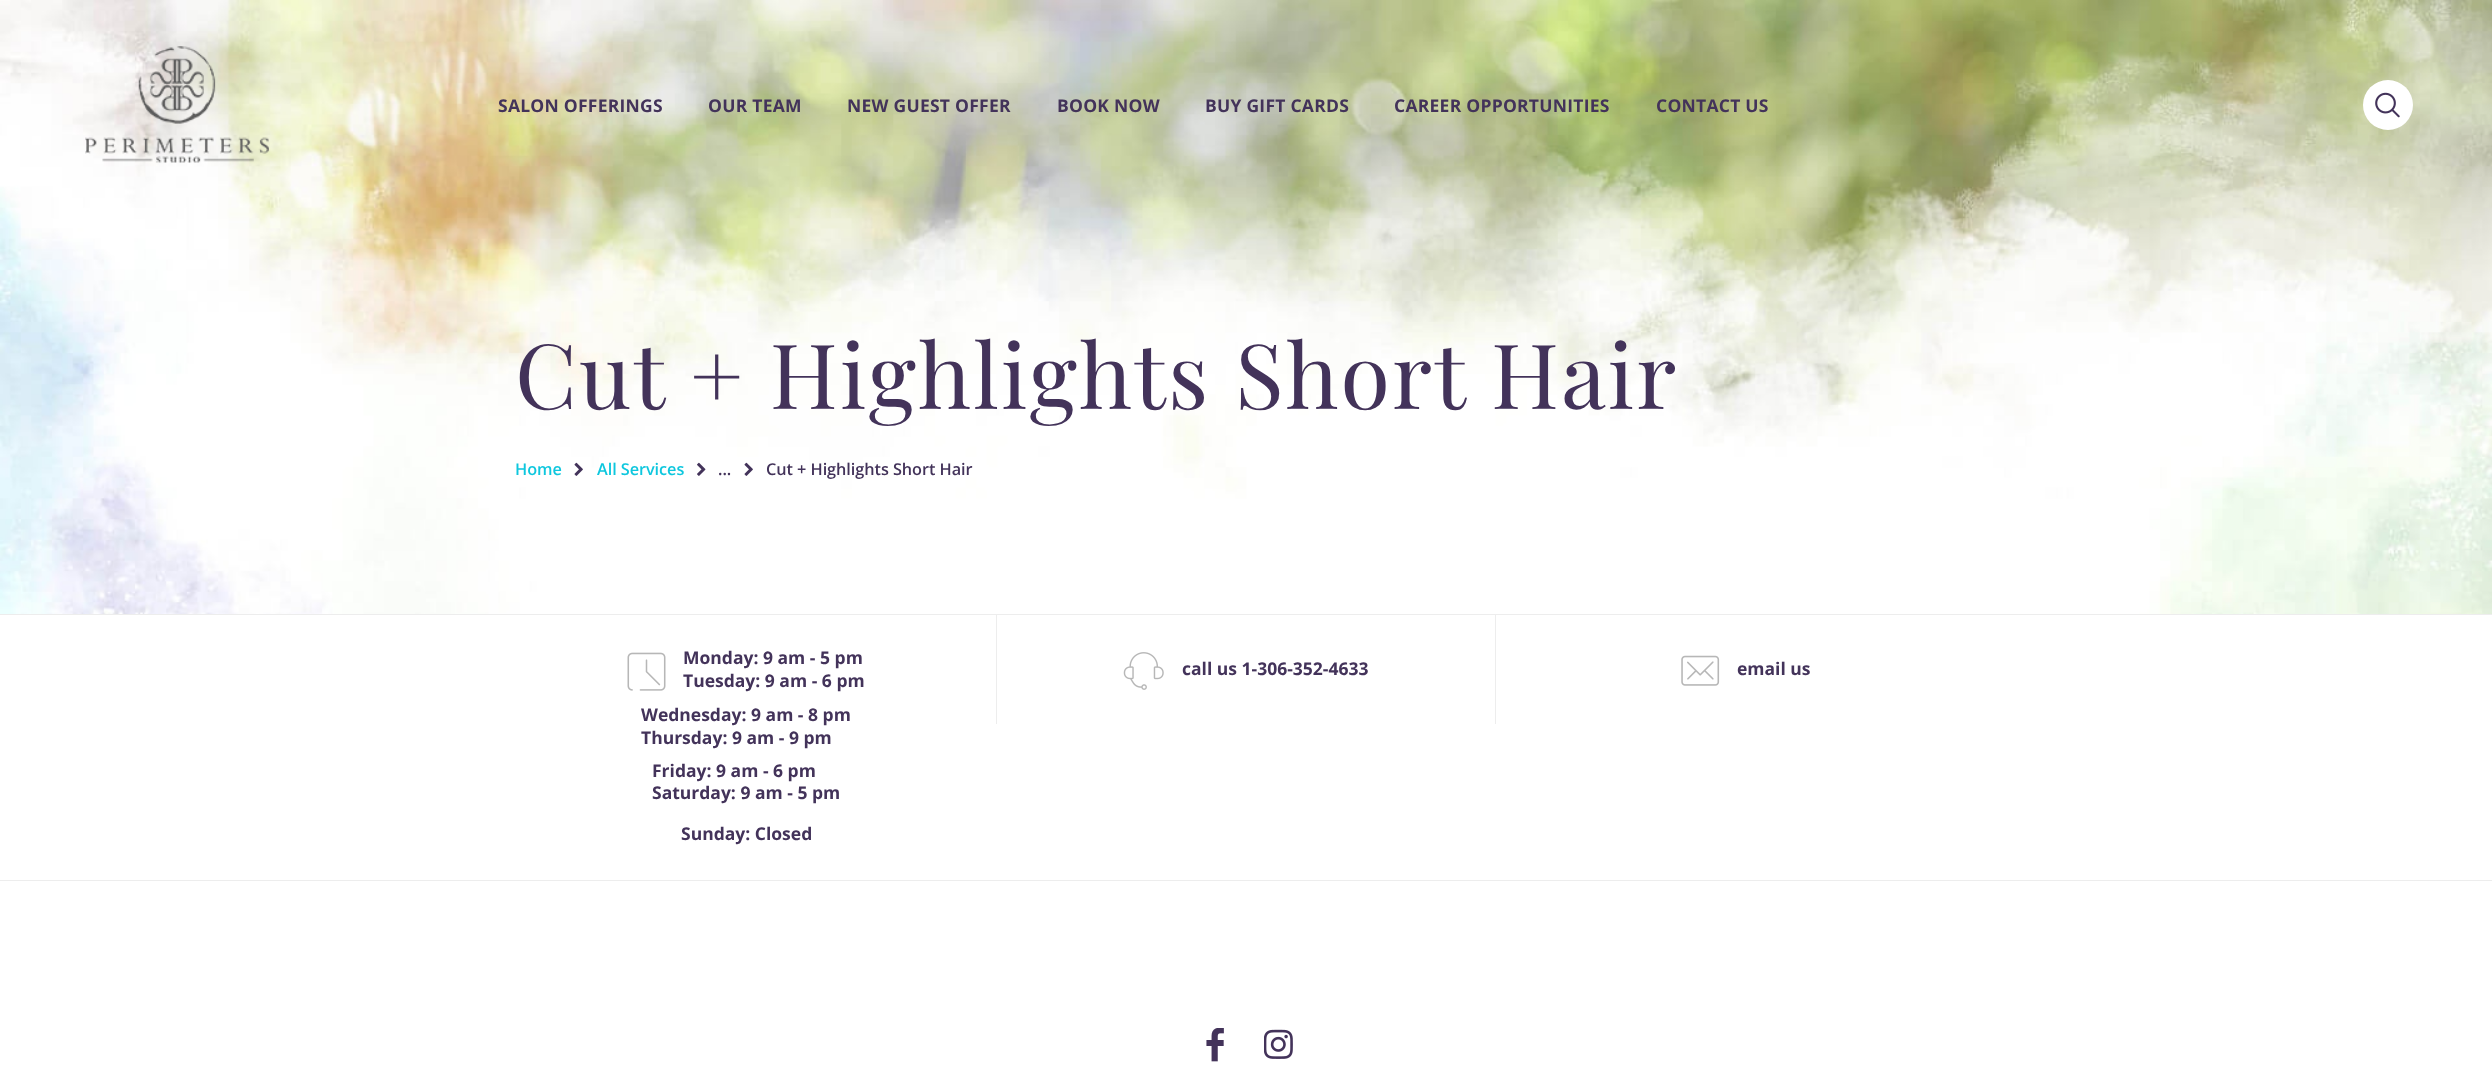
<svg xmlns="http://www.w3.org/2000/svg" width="2492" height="1081">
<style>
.a{font:bold 17.5px Open Sans;letter-spacing:0.25px;fill:#43335a}
.b{font:90px Playfair Display;letter-spacing:2.1px;fill:#43335a}
.c{font:600 16.25px Open Sans;letter-spacing:-0.05px;fill:#0ec7de}
.d{font:600 16.25px Open Sans;letter-spacing:-0.05px;fill:#43335a}
.e{font:bold 17.5px Open Sans;fill:#43335a}
</style>
<rect width="100%" height="100%" fill="#fff"/>
<image href="1.png" x="0" y="0" width="2492" height="614"/>
<image href="2.png" x="85" y="46" width="184" height="117"/>
<circle fill="#fff" cx="2388" cy="105" r="25"/>
<image href="3.png" x="2375" y="92" width="25" height="26"/>
<image href="4.png" x="574" y="462" width="9" height="14"/>
<image href="5.png" x="697" y="462" width="9" height="14"/>
<image href="4.png" x="744" y="462" width="9" height="14"/>
<path fill="#ededed" d="M0 614h2492v1H0z"/>
<path fill="#ededed" d="M0 880h2492v1H0z"/>
<image href="6.png" x="627" y="652" width="39" height="39"/>
<path fill="#ededed" d="M1495 615h1v109H1495z"/>
<path fill="#ededed" d="M996 615h1v109H996z"/>
<image href="7.png" x="1123" y="652" width="41" height="38"/>
<image href="8.png" x="1681" y="655" width="39" height="31"/>
<image href="9.png" x="1206" y="1028" width="18" height="34"/>
<image href="10.png" x="1264" y="1029" width="29" height="30"/>
<text class="a" x="498" y="112">SALON OFFERINGS</text>
<text class="a" x="708" y="112">OUR TEAM</text>
<text class="a" x="847" y="112">NEW GUEST OFFER</text>
<text class="a" x="1057" y="112">BOOK NOW</text>
<text class="a" x="1205" y="112">BUY GIFT CARDS</text>
<text class="a" x="1394" y="112">CAREER OPPORTUNITIES</text>
<text class="a" x="1656" y="112">CONTACT US</text>
<text class="b" x="515" y="409">Cut + Highlights Short Hair</text>
<text class="c" x="515" y="475">Home</text>
<text class="c" x="597" y="475">All Services</text>
<text class="d" x="718" y="475">...</text>
<text class="d" x="766" y="475">Cut + Highlights Short Hair</text>
<text class="e" x="683" y="664">Monday: 9 am - 5 pm</text>
<text class="e" x="683" y="687">Tuesday: 9 am - 6 pm</text>
<text class="e" x="641" y="721">Wednesday: 9 am - 8 pm</text>
<text class="e" x="641" y="744">Thursday: 9 am - 9 pm</text>
<text class="e" x="652" y="777">Friday: 9 am - 6 pm</text>
<text class="e" x="652" y="799">Saturday: 9 am - 5 pm</text>
<text class="e" x="681" y="840">Sunday: Closed</text>
<text class="e" x="1182" y="675">call us 1-306-352-4633</text>
<text class="e" x="1737" y="675">email us</text>
</svg>
